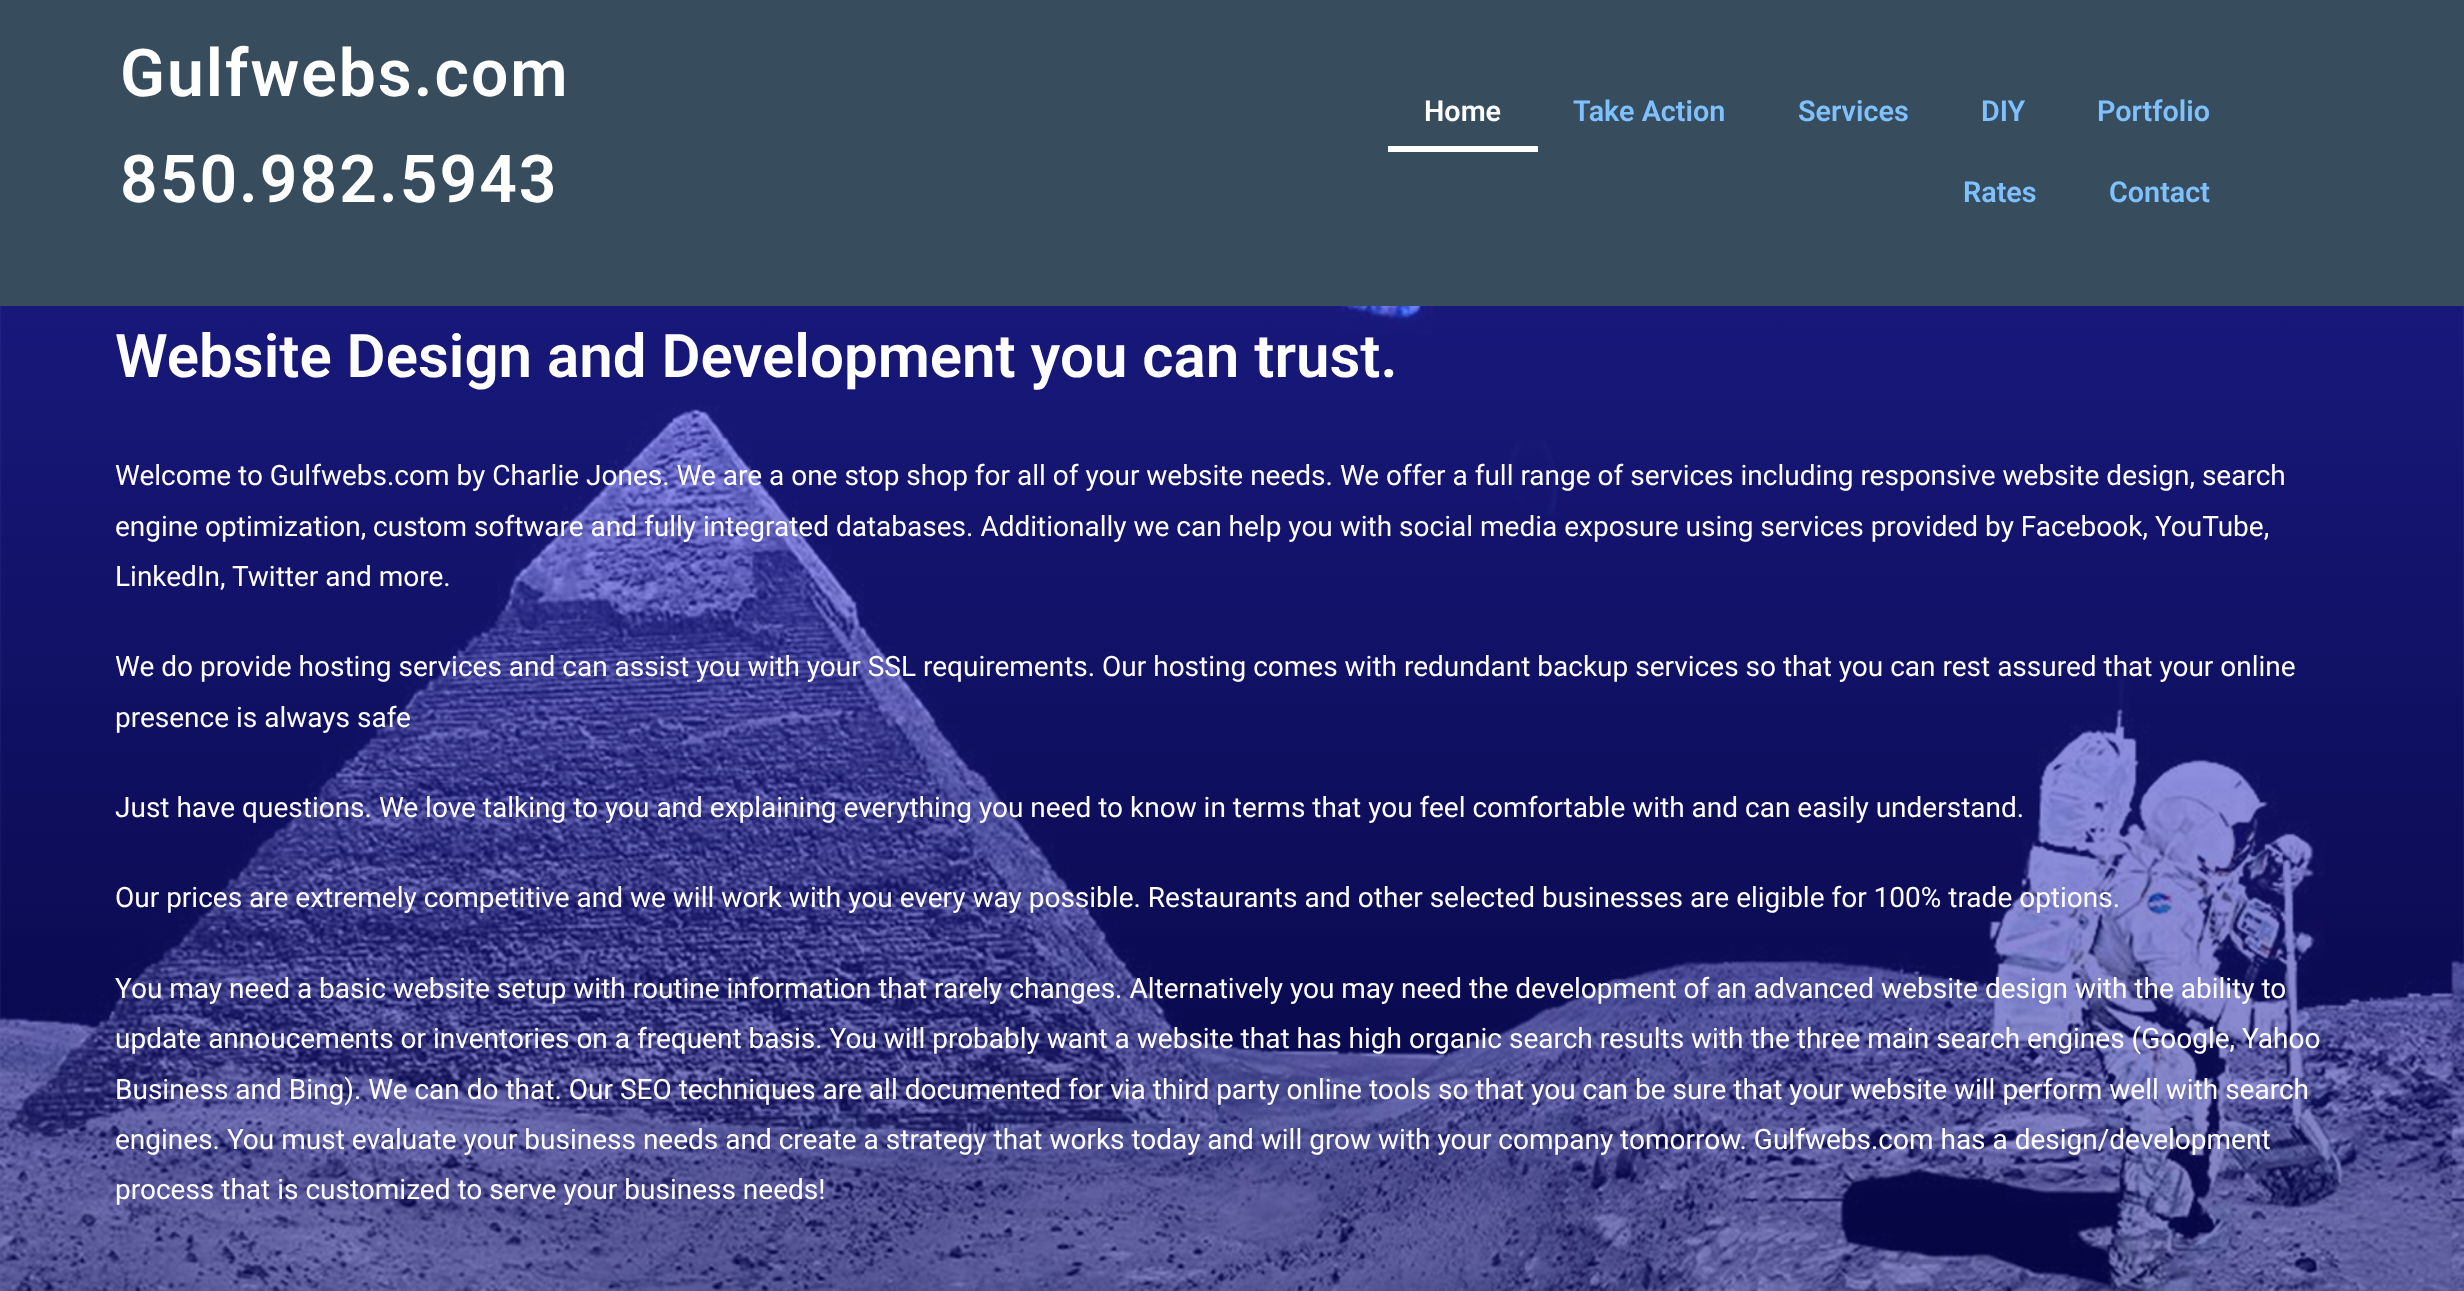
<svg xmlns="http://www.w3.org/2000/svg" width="2464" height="1291">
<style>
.a{font:600 66px Roboto;letter-spacing:2px;fill:#fff}
.b{font:600 28.75px Roboto;fill:#fff}
.c{font:600 28.75px Roboto;fill:#7fc1ff}
.d{font:600 60px Roboto;fill:#fff}
.e{font:28px Roboto;fill:#fff}
</style>
<defs>
<linearGradient id="g1" gradientUnits="userSpaceOnUse" x1="1232" y1="232" x2="1232" y2="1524"><stop offset="0" stop-color="#33f" stop-opacity="0.5"/><stop offset="1" stop-color="#006" stop-opacity="0.5"/></linearGradient>
</defs>
<rect width="100%" height="100%" fill="#fff"/>
<path fill="#374d5d" d="M0 0h2464v306H0z"/>
<path fill="#fff" d="M1388 146h150v6H1388z"/>
<image href="1.png" x="0" y="306" width="2464" height="985"/>
<path fill="url(#g1)" d="M0 306h2464v985H0z"/>
<text class="a" x="120" y="96">Gulfwebs.com</text>
<text class="a" x="120" y="202">850.982.5943</text>
<text class="b" x="1424" y="121">Home</text>
<text class="c" x="1573" y="121">Take Action</text>
<text class="c" x="1798" y="121">Services</text>
<text class="c" x="1981" y="121">DIY</text>
<text class="c" x="2097" y="121">Portfolio</text>
<text class="c" x="1963" y="202">Rates</text>
<text class="c" x="2109" y="202">Contact</text>
<text class="d" x="115" y="377">Website Design and Development you can trust.</text>
<text class="e" x="115" y="485">Welcome to Gulfwebs.com by Charlie Jones. We are a one stop shop for all of your website needs. We offer a full range of services including responsive website design, search</text>
<text class="e" x="115" y="536">engine optimization, custom software and fully integrated databases. Additionally we can help you with social media exposure using services provided by Facebook, YouTube,</text>
<text class="e" x="115" y="586">LinkedIn, Twitter and more.</text>
<text class="e" x="115" y="676">We do provide hosting services and can assist you with your SSL requirements. Our hosting comes with redundant backup services so that you can rest assured that your online</text>
<text class="e" x="115" y="727">presence is always safe</text>
<text class="e" x="115" y="817">Just have questions. We love talking to you and explaining everything you need to know in terms that you feel comfortable with and can easily understand.</text>
<text class="e" x="115" y="907">Our prices are extremely competitive and we will work with you every way possible. Restaurants and other selected businesses are eligible for 100% trade options.</text>
<text class="e" x="115" y="998">You may need a basic website setup with routine information that rarely changes. Alternatively you may need the development of an advanced website design with the ability to</text>
<text class="e" x="115" y="1048">update annoucements or inventories on a frequent basis. You will probably want a website that has high organic search results with the three main search engines (Google, Yahoo</text>
<text class="e" x="115" y="1099">Business and Bing). We can do that. Our SEO techniques are all documented for via third party online tools so that you can be sure that your website will perform well with search</text>
<text class="e" x="115" y="1149">engines. You must evaluate your business needs and create a strategy that works today and will grow with your company tomorrow. Gulfwebs.com has a design/development</text>
<text class="e" x="115" y="1199">process that is customized to serve your business needs!</text>
</svg>
